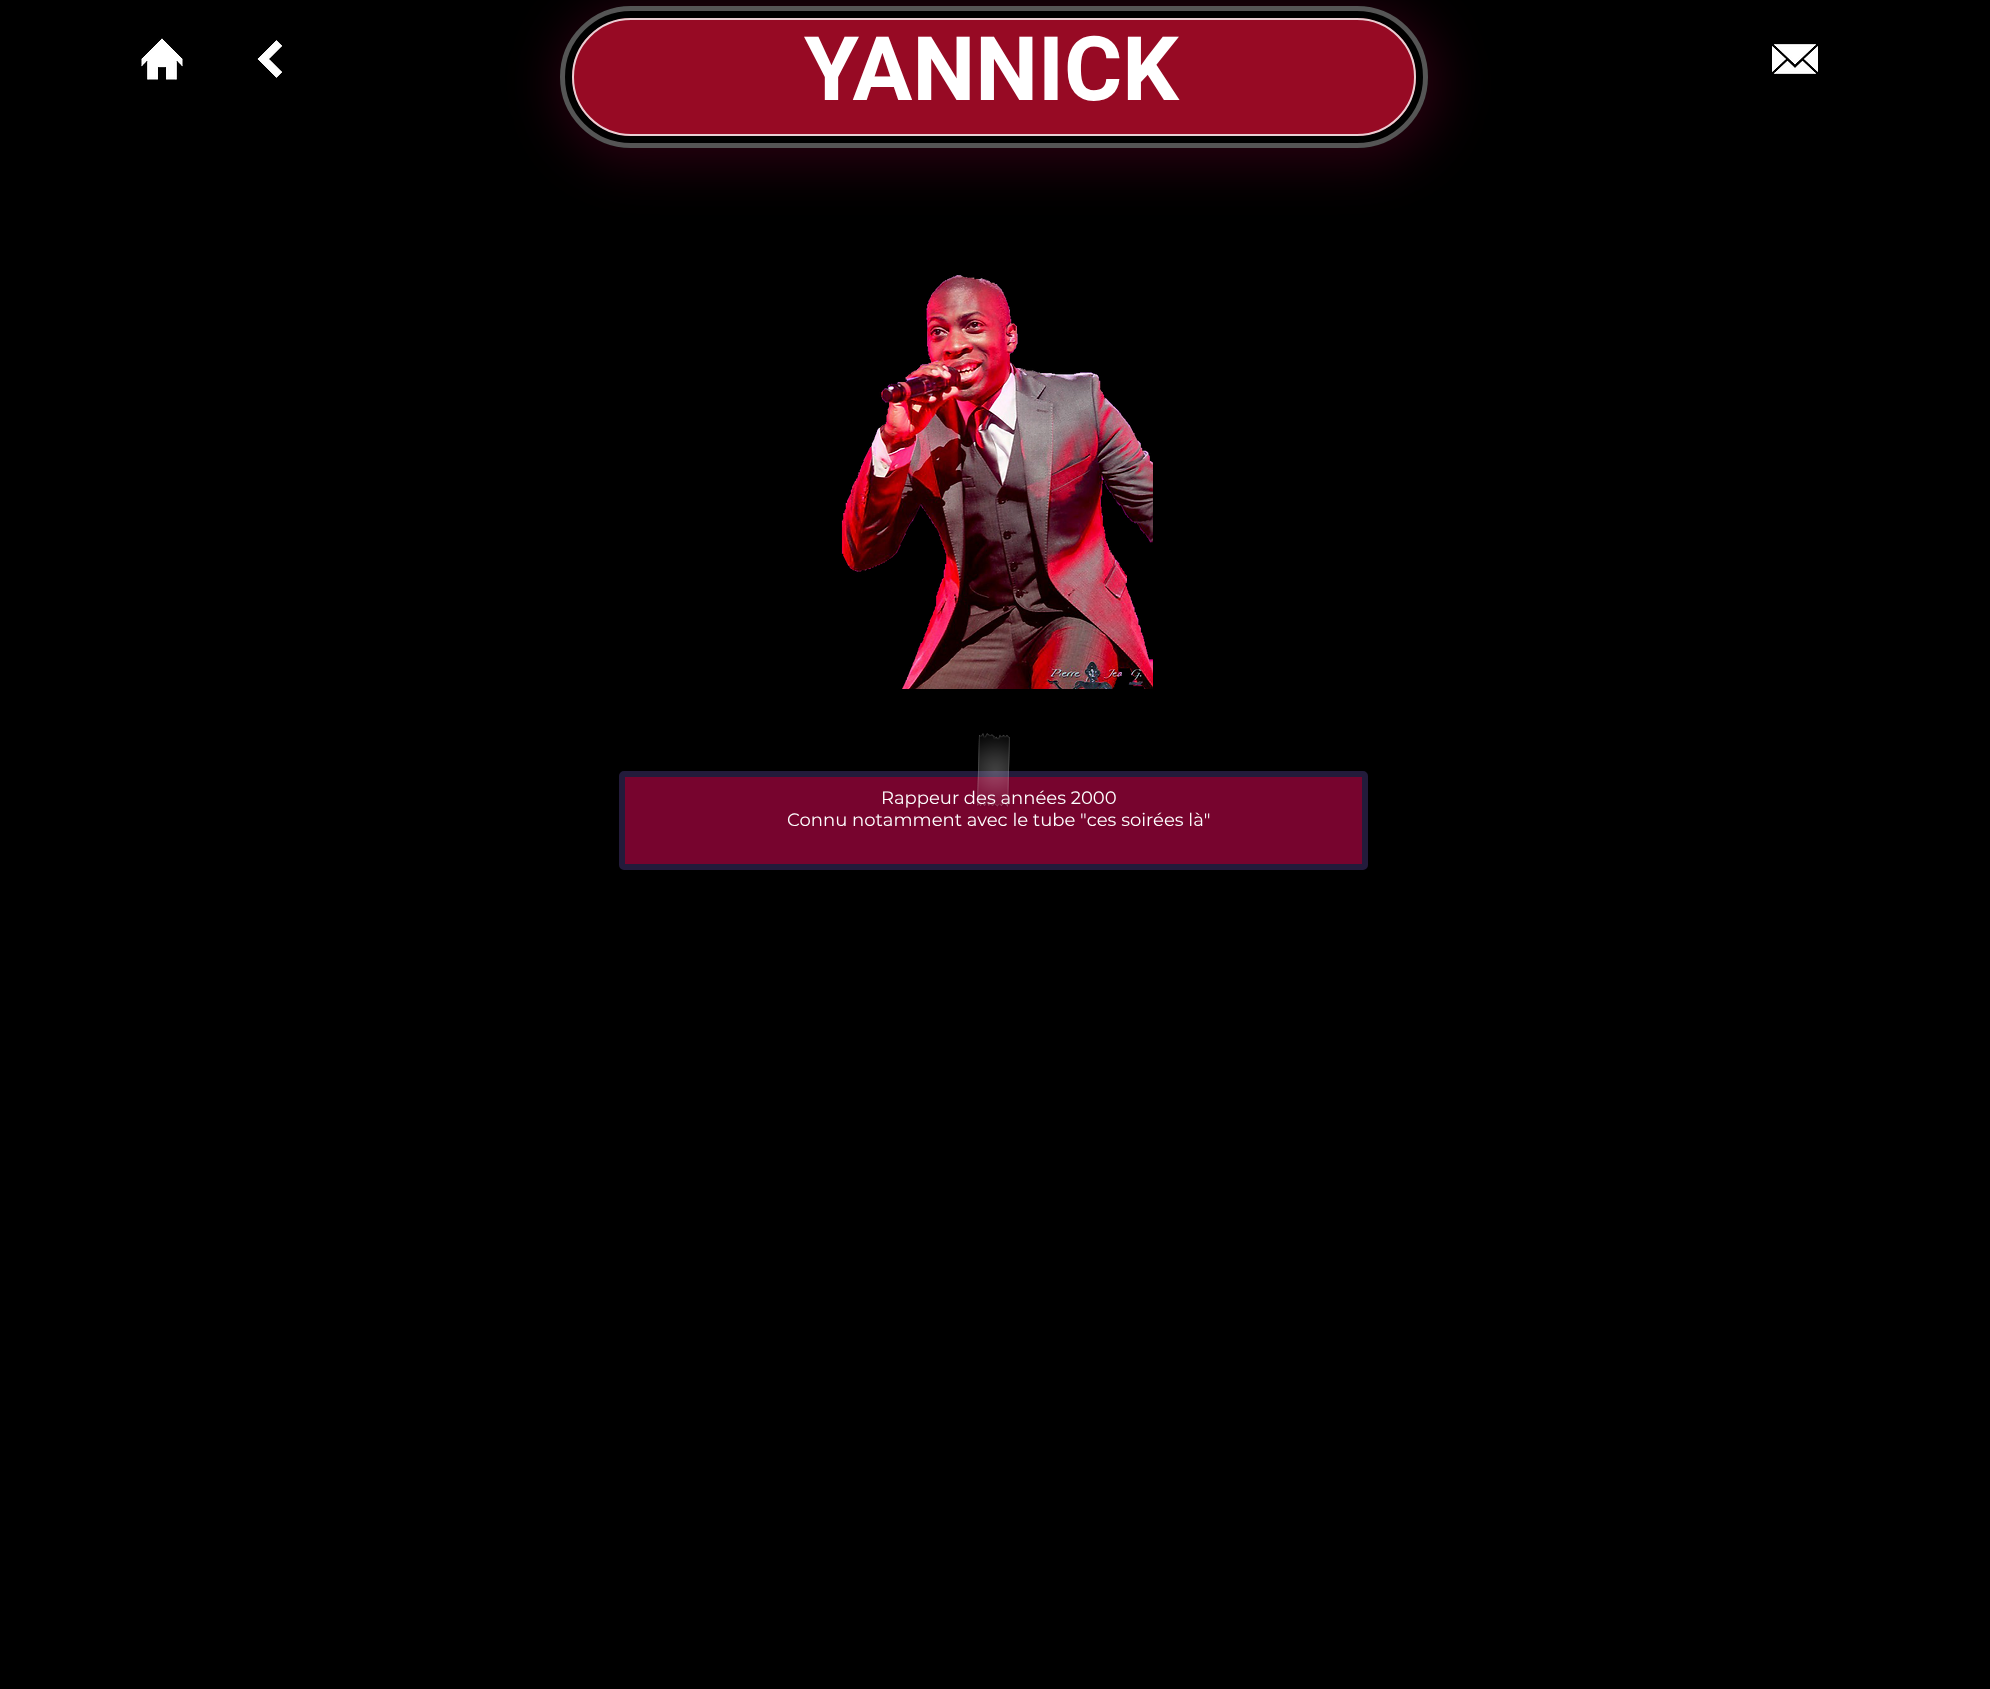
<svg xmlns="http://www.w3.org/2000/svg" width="1990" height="1689">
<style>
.a{font:bold 89px Roboto;fill:#fff}
.b{font:18px Montserrat;fill:#fff}
</style>
<defs>
<clipPath id="clip1"><path d="M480 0h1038v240h-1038zm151 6h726c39 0 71 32 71 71c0 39-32 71-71 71h-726c-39 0-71-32-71-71c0-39 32-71 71-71z" clip-rule="evenodd"/></clipPath>
</defs>
<rect width="100%" height="100%" fill="#000"/>
<image href="1.png" x="141" y="38" width="42" height="42"/>
<image href="2.png" x="257" y="40" width="25" height="38"/>
<g clip-path="url(#clip1)">
<rect fill="#47001a91" filter="blur(25px)" x="556" y="4" width="886" height="160" rx="80"/>
</g>
<rect fill="none" stroke="#555" stroke-width="5" x="562.5" y="8.5" width="863" height="137" rx="68.5"/>
<rect fill="#970a24" x="572" y="18" width="844" height="118" rx="59"/>
<rect fill="none" stroke="#ffffffcc" stroke-width="2" x="573" y="19" width="842" height="116" rx="58"/>
<image href="3.png" x="1772" y="44" width="46" height="30"/>
<image href="4.png" x="841" y="275" width="312" height="414"/>
<rect fill="#77042e" stroke="#231b3b" stroke-width="6" x="622" y="774" width="743" height="93" rx="2"/>
<text class="a" x="804" y="100">YANNICK</text>
<text class="b" x="881" y="804">Rappeur des années 2000</text>
<image href="5.png" x="976" y="733" width="34" height="74"/>
<text class="b" x="787" y="826">Connu notamment avec le tube "ces soirées là"</text>
</svg>
